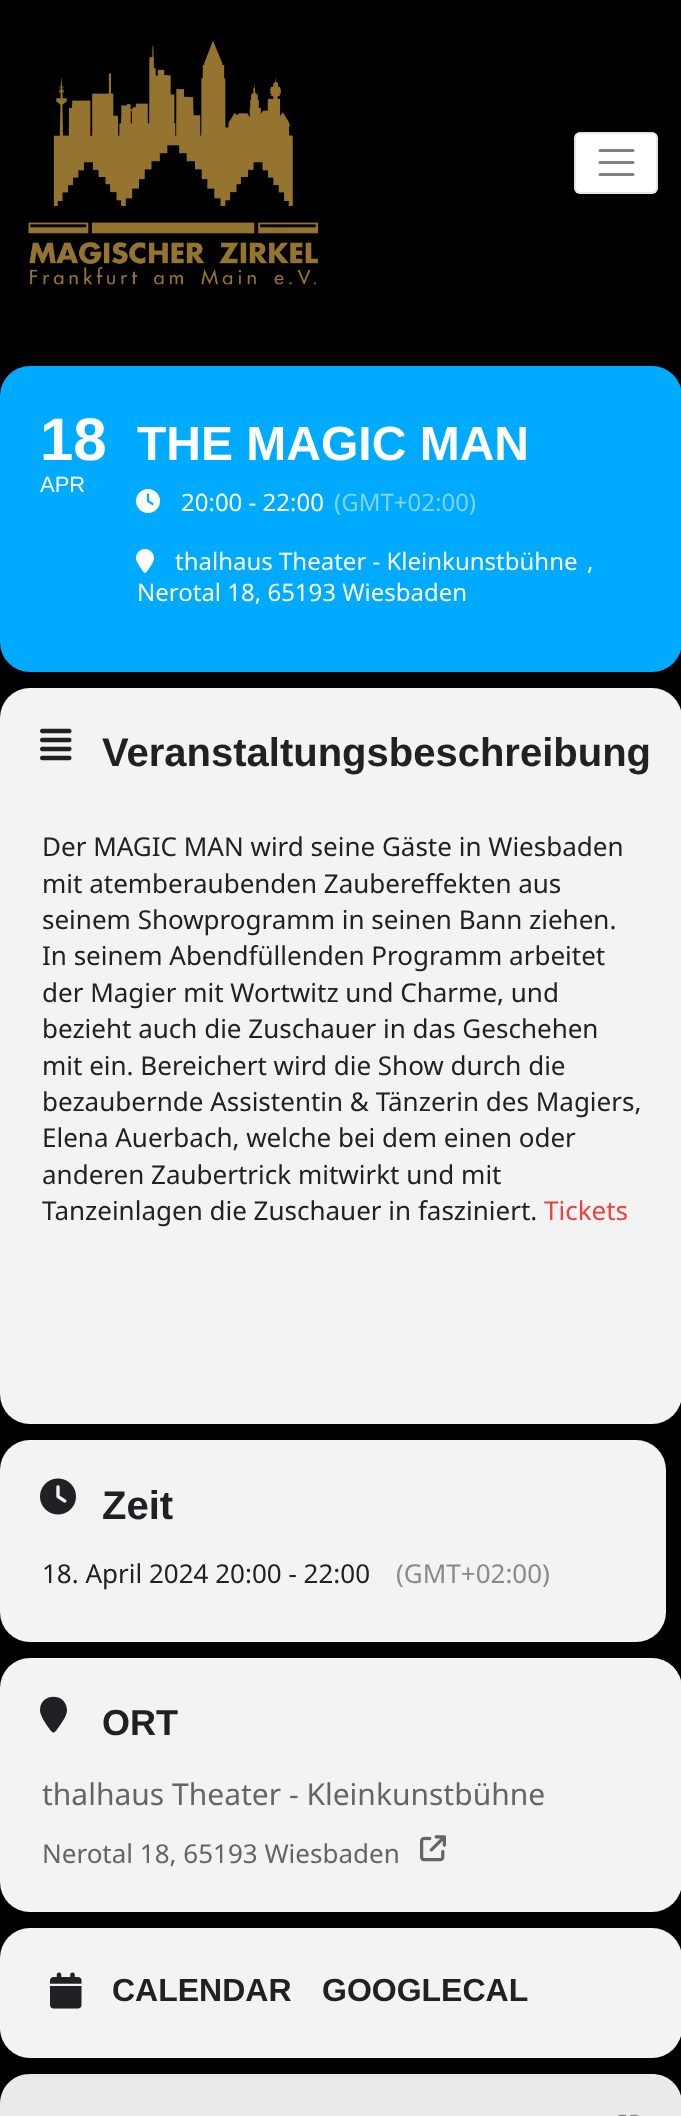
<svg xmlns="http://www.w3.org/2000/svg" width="681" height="2116">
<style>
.a{font:bold 60px Liberation Sans;fill:#fff}
.b{font:22px Liberation Sans;fill:#fff}
.c{font:bold 48px Liberation Sans;fill:#fff}
.d{font:24px Noto Sans;fill:#fff}
.e{font:24px Noto Sans;fill:#80d5ff}
.f{font:bold 40px Liberation Sans;fill:#202124}
.g{font:26px Noto Sans;fill:#202124}
.h{font:26px Noto Sans;fill:#ef4040}
.i{font:26px Noto Sans;fill:#8a8a8c}
.j{font:bold 36px Liberation Sans;fill:#202124}
.k{font:30px Noto Sans;fill:#656565}
.l{font:26px Noto Sans;fill:#656565}
.m{font:bold 32px Liberation Sans;fill:#202124}
</style>
<rect width="100%" height="100%" fill="#000"/>
<image href="1.png" x="28" y="40" width="290" height="245"/>
<rect fill="#fff" x="574" y="132" width="84" height="62" rx="6"/>
<rect fill="none" stroke="#0000001a" stroke-width="2" x="575" y="133" width="82" height="60" rx="5"/>
<path fill="none" stroke="#808080" stroke-width="3" stroke-linecap="round" d="M600 150.5h33m-33 12h33m-33 12h33"/>
<rect fill="#0af" y="366" width="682" height="306" rx="30"/>
<image href="2.png" x="136" y="489" width="24" height="24"/>
<image href="3.png" x="136" y="549" width="18" height="24"/>
<rect fill="#f3f3f3" y="688" width="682" height="736" rx="30"/>
<image href="4.png" x="40" y="728" width="32" height="33"/>
<rect fill="#f3f3f3" y="1440" width="666" height="202" rx="30"/>
<image href="5.png" x="40" y="1478" width="36" height="37"/>
<rect fill="#f3f3f3" y="1658" width="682" height="254" rx="30"/>
<path fill="#202124" d="M67 1710c0 5-3.5 10-6.5 14.5c-7 10-6.5 11-13.5 1c-2.5-4-7-10.5-7-15.5c0-17.5 26.5-18 27 0z"/>
<image href="6.png" x="420" y="1835" width="26" height="27"/>
<rect fill="#f3f3f3" y="1928" width="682" height="130" rx="30"/>
<image href="7.png" x="50" y="1972" width="32" height="37"/>
<path fill="#eaeaea" d="M30 2074h622c17 0 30 13 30 30v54c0 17-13 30-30 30h-622c-17 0-30-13-30-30v-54c0-17 13-30 30-30z"/>
<image href="8.png" x="617" y="2114" width="22" height="2"/>
<text class="a" x="40" y="460">18</text>
<text class="b" x="40" y="492">APR</text>
<text class="c" x="137" y="460">THE MAGIC MAN</text>
<text class="d" x="181" y="511">20:00 - 22:00</text>
<text class="e" x="334" y="511">(GMT+02:00)</text>
<text class="d" x="175" y="570">thalhaus Theater - Kleinkunstbühne</text>
<text class="d" x="587" y="570">,</text>
<text class="d" x="137" y="601">Nerotal 18, 65193 Wiesbaden</text>
<text class="f" x="102" y="766">Veranstaltungsbeschreibung</text>
<text class="g" x="42" y="856">Der MAGIC MAN wird seine Gäste in Wiesbaden</text>
<text class="g" x="42" y="893">mit atemberaubenden Zaubereffekten aus</text>
<text class="g" x="42" y="929">seinem Showprogramm in seinen Bann ziehen.</text>
<text class="g" x="42" y="965">In seinem Abendfüllenden Programm arbeitet</text>
<text class="g" x="42" y="1002">der Magier mit Wortwitz und Charme, und</text>
<text class="g" x="42" y="1038">bezieht auch die Zuschauer in das Geschehen</text>
<text class="g" x="42" y="1075">mit ein. Bereichert wird die Show durch die</text>
<text class="g" x="42" y="1111">bezaubernde Assistentin &amp; Tänzerin des Magiers,</text>
<text class="g" x="42" y="1147">Elena Auerbach, welche bei dem einen oder</text>
<text class="g" x="42" y="1184">anderen Zaubertrick mitwirkt und mit</text>
<text class="g" x="42" y="1220">Tanzeinlagen die Zuschauer in fasziniert.</text>
<text class="h" x="544" y="1220">Tickets</text>
<text class="f" x="102" y="1519">Zeit</text>
<text class="g" x="42" y="1583">18. April 2024 20:00 - 22:00</text>
<text class="i" x="396" y="1583">(GMT+02:00)</text>
<text class="j" x="102" y="1735">ORT</text>
<text class="k" x="42" y="1805">thalhaus Theater - Kleinkunstbühne</text>
<text class="l" x="42" y="1863">Nerotal 18, 65193 Wiesbaden</text>
<text class="m" x="112" y="2001">CALENDAR</text>
<text class="m" x="322" y="2001">GOOGLECAL</text>
</svg>
